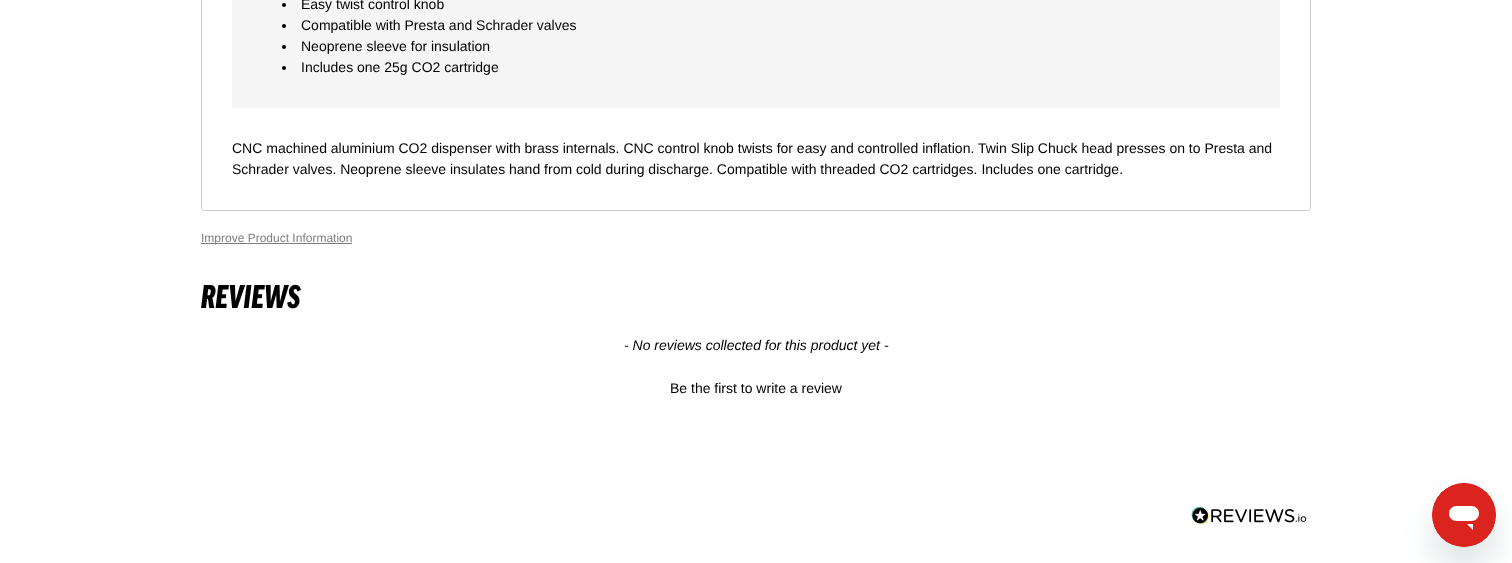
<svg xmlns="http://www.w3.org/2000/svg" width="1512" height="563">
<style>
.a{font:14px Liberation Sans;fill:#000}
.b{font:12px Liberation Sans;fill:#7e7e7e}
.c{font:italic 900 35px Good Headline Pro;fill:#000}
.d{font:italic 14px Liberation Sans;fill:#000}
</style>
<rect width="100%" height="100%" fill="#fff"/>
<path fill="none" stroke="#cecece" d="M201.5-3.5h1109v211.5c0 1.5-1 2.5-2.5 2.5h-1104c-1.5 0-2.5-1-2.5-2.5z"/>
<rect fill="#fff" x="202" y="-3" width="1108" height="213" rx="3"/>
<path fill="#f5f5f5" d="M232 0h1048v108H232z"/>
<circle fill="#000" cx="284" cy="5" r="2"/>
<circle fill="#000" cx="284" cy="26" r="2"/>
<circle fill="#000" cx="284" cy="47" r="2"/>
<circle fill="#000" cx="284" cy="68" r="2"/>
<path fill="#7e7e7e" d="M201 243h151v1H201z"/>
<image href="1.png" x="1191" y="506" width="116" height="19"/>
<rect fill="#17494d26" filter="blur(15px)" x="1432" y="503" width="64" height="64" rx="32"/>
<image href="2.png" x="1432" y="483" width="64" height="64"/>
<text class="a" x="301" y="9">Easy twist control knob</text>
<text class="a" x="301" y="30">Compatible with Presta and Schrader valves</text>
<text class="a" x="301" y="51">Neoprene sleeve for insulation</text>
<text class="a" x="301" y="72">Includes one 25g CO2 cartridge</text>
<text class="a" x="232" y="153">CNC machined aluminium CO2 dispenser with brass internals. CNC control knob twists for easy and controlled inflation. Twin Slip Chuck head presses on to Presta and</text>
<text class="a" x="232" y="174">Schrader valves. Neoprene sleeve insulates hand from cold during discharge. Compatible with threaded CO2 cartridges. Includes one cartridge.</text>
<text class="b" x="201" y="242">Improve Product Information</text>
<text class="c" x="201" y="308">REVIEWS</text>
<text class="d" x="624" y="350">- No reviews collected for this product yet -</text>
<text class="a" x="670" y="393">Be the first to write a review</text>
</svg>
